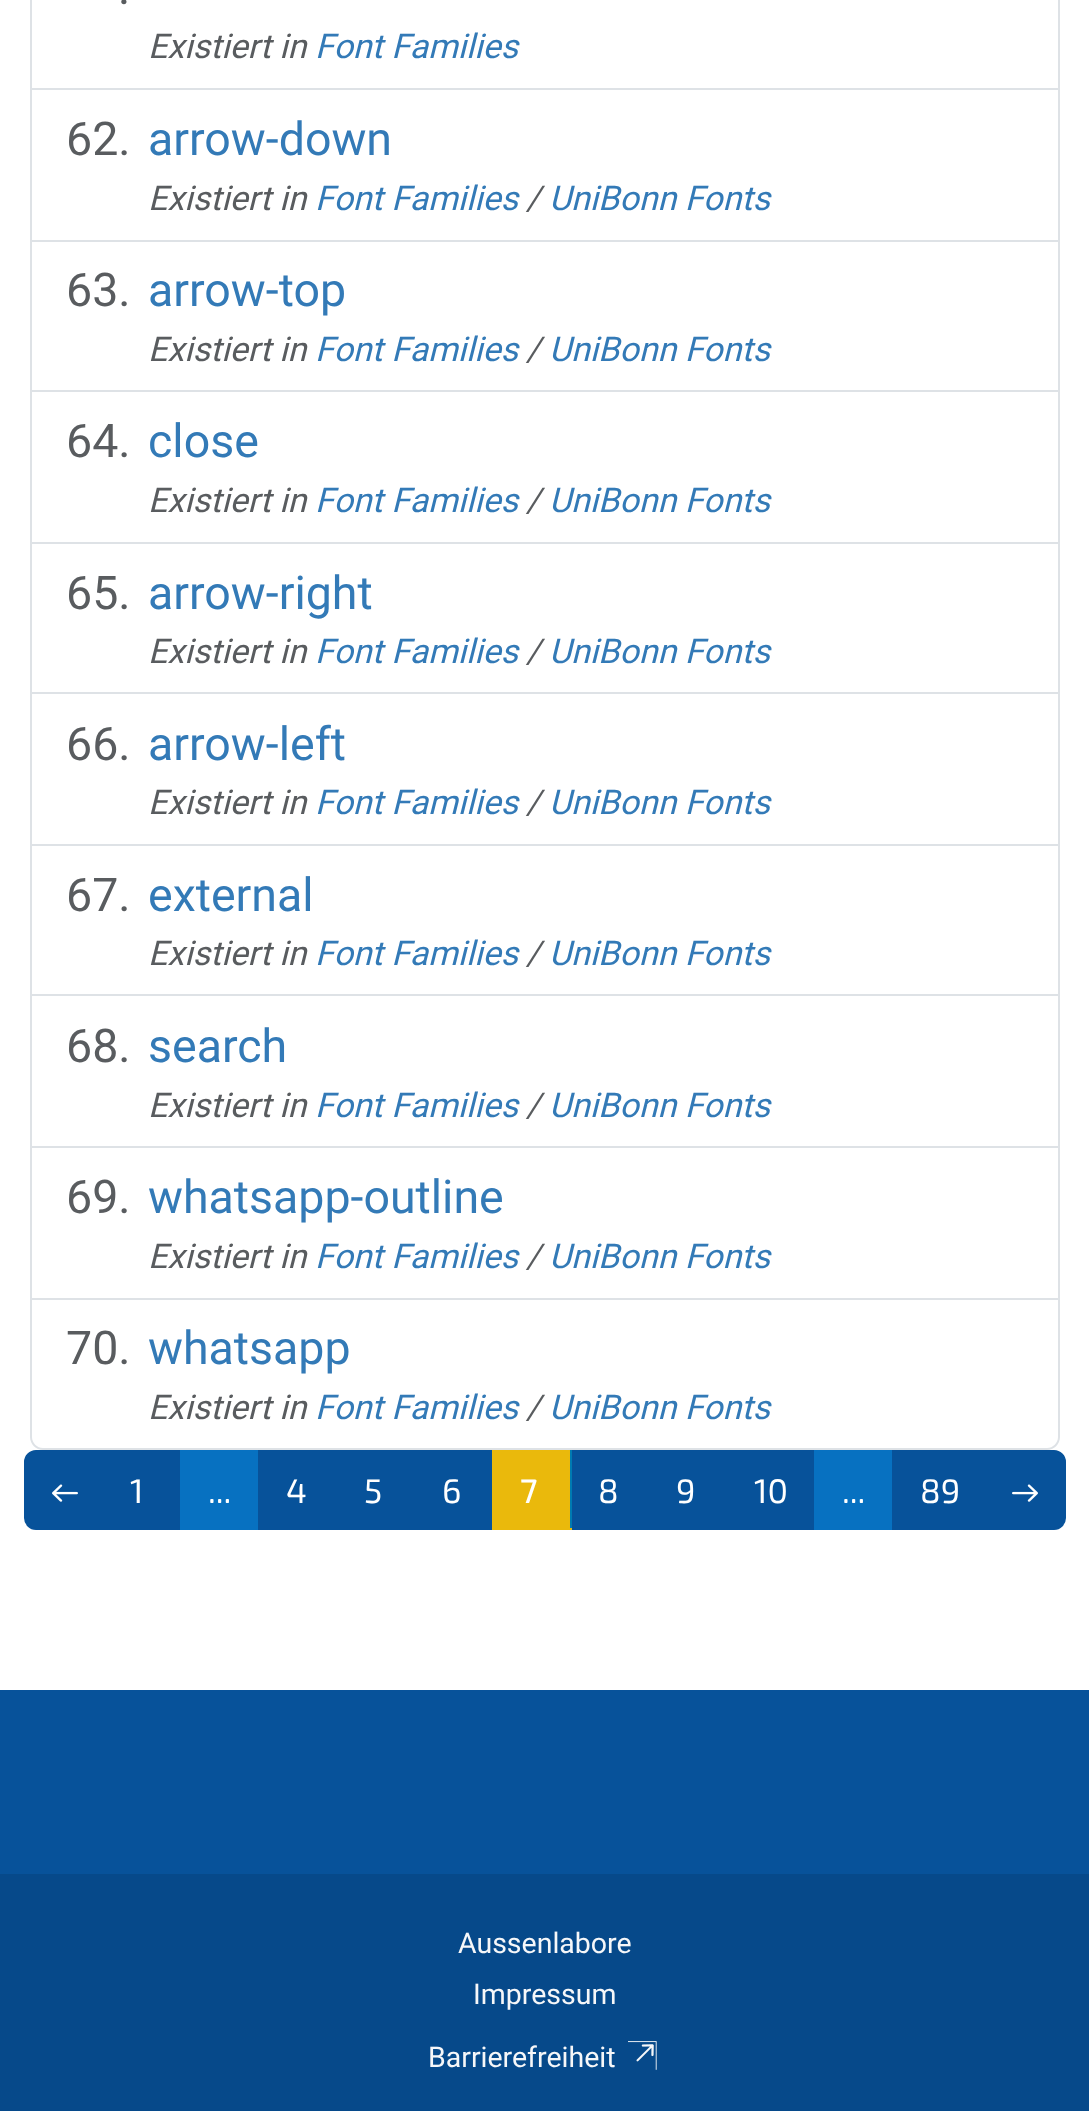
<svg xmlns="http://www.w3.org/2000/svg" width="1089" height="2111">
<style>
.a{font:46.5px Roboto;fill:#595c5f}
.b{font:italic 34px Roboto;fill:#595c5f}
.c{font:italic 34px Roboto;fill:#337ab7}
.d{font:46.5px Roboto;fill:#337ab7}
.e{font:34px 'Exo 2';fill:#fff}
.f{font:500 34px 'Exo 2';fill:#fff}
.g{font:28.5px Roboto;fill:#f6f7f9}
</style>
<rect width="100%" height="100%" fill="#fff"/>
<path fill="none" stroke="#dee2e6" stroke-width="2" d="M31 -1h1028v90H31z"/>
<path fill="#dee2e6" d="M1058 90h2v1210H1058z"/>
<path fill="#dee2e6" d="M30 240h1030v2H30z"/>
<path fill="#dee2e6" d="M30 90h2v152H30z"/>
<path fill="#dee2e6" d="M30 390h1030v2H30z"/>
<path fill="#dee2e6" d="M30 242h2v150H30z"/>
<path fill="#dee2e6" d="M30 542h1030v2H30z"/>
<path fill="#dee2e6" d="M30 392h2v152H30z"/>
<path fill="#dee2e6" d="M30 692h1030v2H30z"/>
<path fill="#dee2e6" d="M30 544h2v150H30z"/>
<path fill="#dee2e6" d="M30 844h1030v2H30z"/>
<path fill="#dee2e6" d="M30 694h2v152H30z"/>
<path fill="#dee2e6" d="M30 994h1030v2H30z"/>
<path fill="#dee2e6" d="M30 846h2v150H30z"/>
<path fill="#dee2e6" d="M30 1146h1030v2H30z"/>
<path fill="#dee2e6" d="M30 996h2v152H30z"/>
<path fill="#dee2e6" d="M30 1298h1030v2H30z"/>
<path fill="#dee2e6" d="M30 1148h2v152H30z"/>
<path fill="#dee2e6" fill-rule="evenodd" d="M30 1300h1030v137c0 7-6 13-13 13h-1004c-7 0-13-6-13-13zm2 0h1026v137c0 6-5 11-11 11h-1004c-6 0-11-5-11-11z"/>
<path fill="#07529a" stroke="#07529a" stroke-width="2" d="M36 1451h67v78h-67c-6 0-11-5-11-11v-56c0-6 5-11 11-11z"/>
<image href="1.png" x="52" y="1484" width="26" height="18"/>
<path fill="#07529a" d="M104 1450h76v80H104z"/>
<path fill="#0771c1" d="M180 1450h78v80H180z"/>
<path fill="#07529a" d="M258 1450h234v80H258z"/>
<path fill="#eab90c" d="M492 1450h78v78H492z"/>
<path fill="#007bb1" d="M570 1450h2v80H570z"/>
<path fill="#eab90c" d="M492 1528h80v2H492z"/>
<path fill="#07529a" d="M572 1450h242v80H572z"/>
<path fill="#0771c1" d="M814 1450h78v80H814z"/>
<path fill="#07529a" d="M892 1450h94v80H892z"/>
<path fill="#07529a" stroke="#07529a" stroke-width="2" d="M987 1451h67c6 0 11 5 11 11v56c0 6-5 11-11 11h-67z"/>
<image href="2.png" x="1012" y="1484" width="26" height="18"/>
<path fill="#07529a" d="M0 1690h1089v184H0z"/>
<path fill="#06498a" d="M0 1874h1089v237H0z"/>
<image href="3.png" x="628" y="2041" width="29" height="29"/>
<text class="a" x="118" y="4">.</text>
<text class="b" x="148" y="58">Existiert in</text>
<text class="c" x="315" y="58">Font Families</text>
<text class="a" x="66" y="155">62.</text>
<text class="d" x="148" y="155">arrow-down</text>
<text class="b" x="148" y="210">Existiert in</text>
<text class="c" x="315" y="210">Font Families</text>
<text class="b" x="526" y="210">/</text>
<text class="c" x="549" y="210">UniBonn Fonts</text>
<text class="a" x="66" y="306">63.</text>
<text class="d" x="148" y="306">arrow-top</text>
<text class="b" x="148" y="361">Existiert in</text>
<text class="c" x="315" y="361">Font Families</text>
<text class="b" x="526" y="361">/</text>
<text class="c" x="549" y="361">UniBonn Fonts</text>
<text class="a" x="66" y="457">64.</text>
<text class="d" x="148" y="457">close</text>
<text class="b" x="148" y="512">Existiert in</text>
<text class="c" x="315" y="512">Font Families</text>
<text class="b" x="526" y="512">/</text>
<text class="c" x="549" y="512">UniBonn Fonts</text>
<text class="a" x="66" y="609">65.</text>
<text class="d" x="148" y="609">arrow-right</text>
<text class="b" x="148" y="663">Existiert in</text>
<text class="c" x="315" y="663">Font Families</text>
<text class="b" x="526" y="663">/</text>
<text class="c" x="549" y="663">UniBonn Fonts</text>
<text class="a" x="66" y="760">66.</text>
<text class="d" x="148" y="760">arrow-left</text>
<text class="b" x="148" y="814">Existiert in</text>
<text class="c" x="315" y="814">Font Families</text>
<text class="b" x="526" y="814">/</text>
<text class="c" x="549" y="814">UniBonn Fonts</text>
<text class="a" x="66" y="911">67.</text>
<text class="d" x="148" y="911">external</text>
<text class="b" x="148" y="965">Existiert in</text>
<text class="c" x="315" y="965">Font Families</text>
<text class="b" x="526" y="965">/</text>
<text class="c" x="549" y="965">UniBonn Fonts</text>
<text class="a" x="66" y="1062">68.</text>
<text class="d" x="148" y="1062">search</text>
<text class="b" x="148" y="1117">Existiert in</text>
<text class="c" x="315" y="1117">Font Families</text>
<text class="b" x="526" y="1117">/</text>
<text class="c" x="549" y="1117">UniBonn Fonts</text>
<text class="a" x="66" y="1213">69.</text>
<text class="d" x="148" y="1213">whatsapp-outline</text>
<text class="b" x="148" y="1268">Existiert in</text>
<text class="c" x="315" y="1268">Font Families</text>
<text class="b" x="526" y="1268">/</text>
<text class="c" x="549" y="1268">UniBonn Fonts</text>
<text class="a" x="66" y="1364">70.</text>
<text class="d" x="148" y="1364">whatsapp</text>
<text class="b" x="148" y="1419">Existiert in</text>
<text class="c" x="315" y="1419">Font Families</text>
<text class="b" x="526" y="1419">/</text>
<text class="c" x="549" y="1419">UniBonn Fonts</text>
<text class="e" x="130" y="1503">1</text>
<text class="e" x="208" y="1503">...</text>
<text class="e" x="286" y="1503">4</text>
<text class="e" x="364" y="1503">5</text>
<text class="e" x="442" y="1503">6</text>
<text class="f" x="520" y="1503">7</text>
<text class="e" x="598" y="1503">8</text>
<text class="e" x="676" y="1503">9</text>
<text class="e" x="754" y="1503">10</text>
<text class="e" x="842" y="1503">...</text>
<text class="e" x="920" y="1503">89</text>
<text class="g" x="458" y="1953">Aussenlabore</text>
<text class="g" x="473" y="2004">Impressum</text>
<text class="g" x="428" y="2067">Barrierefreiheit</text>
</svg>
